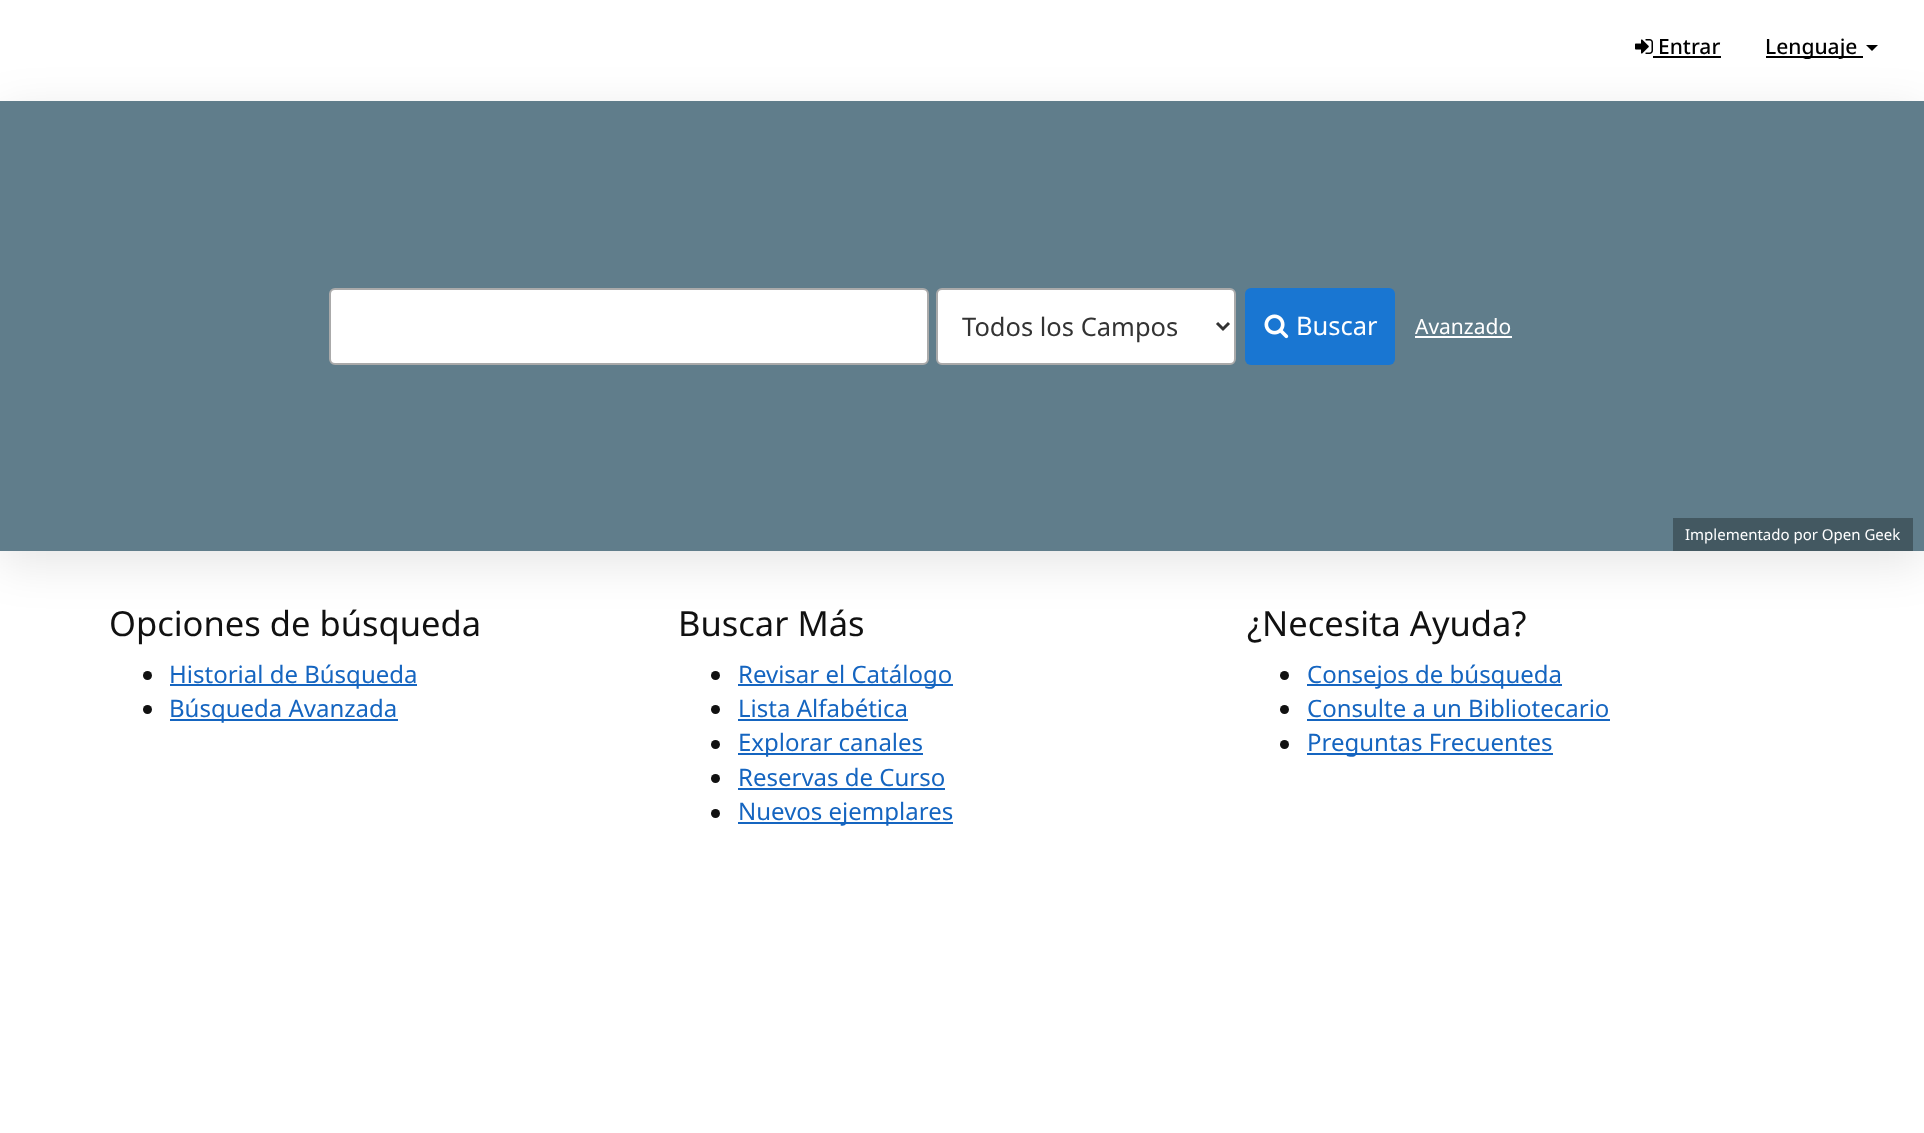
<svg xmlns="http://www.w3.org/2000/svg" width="1924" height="1133">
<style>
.a{font:500 21px Noto Sans;fill:#000}
.b{font:25.5px Noto Sans;fill:#333}
.c{font:25.5px Noto Sans;fill:#fff}
.d{font:21px Noto Sans;fill:#fff}
.e{font:15px Noto Sans;fill:#fff}
.f{font:34.5px Noto Sans;fill:#111}
.g{font:24px Noto Sans;fill:#1565c0}
</style>
<rect width="100%" height="100%" fill="#fff"/>
<image href="1.png" x="1635" y="39" width="18" height="15"/>
<path fill="#000" d="M1653 56h68v2H1653z"/>
<path fill="#000" d="M1766 56h97v2H1766z"/>
<path fill="#000" d="M1866 45h12l-6 6z"/>
<path fill="#0000001a" filter="blur(24px)" d="M0 113h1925v450H0z"/>
<path fill="#607d8b" d="M0 101h1924v450H0z"/>
<rect fill="#fff" stroke="#aaa" stroke-width="2" x="330" y="289" width="598" height="75" rx="5"/>
<rect fill="#fff" stroke="#aaa" stroke-width="2" x="937" y="289" width="298" height="75" rx="5"/>
<path fill="none" stroke="#333" stroke-width="3" d="M1217 323l6 6l6-6"/>
<rect fill="#1976d2" x="1245" y="288" width="150" height="77" rx="6"/>
<image href="2.png" x="1264" y="314" width="25" height="25"/>
<path fill="#fff" d="M1415 336h97v2H1415z"/>
<path fill="#435861" d="M1673 518h240v33H1673z"/>
<circle fill="#111" cx="147.5" cy="675.5" r="4.5"/>
<path fill="#1565c0" d="M170 684h247v2H170z"/>
<circle fill="#111" cx="147.5" cy="709.5" r="4.5"/>
<path fill="#1565c0" d="M170 719h228v2H170z"/>
<circle fill="#111" cx="715.5" cy="675.5" r="4.5"/>
<path fill="#1565c0" d="M738 684h215v2H738z"/>
<circle fill="#111" cx="715.5" cy="709.5" r="4.5"/>
<path fill="#1565c0" d="M738 719h170v2H738z"/>
<circle fill="#111" cx="715.5" cy="744.5" r="4.5"/>
<path fill="#1565c0" d="M738 753h185v2H738z"/>
<circle fill="#111" cx="715.5" cy="778.5" r="4.5"/>
<path fill="#1565c0" d="M738 788h207v2H738z"/>
<circle fill="#111" cx="715.5" cy="813.5" r="4.5"/>
<path fill="#1565c0" d="M738 822h215v2H738z"/>
<circle fill="#111" cx="1284.5" cy="675.5" r="4.5"/>
<path fill="#1565c0" d="M1307 684h255v2H1307z"/>
<circle fill="#111" cx="1284.5" cy="709.5" r="4.5"/>
<path fill="#1565c0" d="M1307 719h303v2H1307z"/>
<circle fill="#111" cx="1284.5" cy="744.5" r="4.5"/>
<path fill="#1565c0" d="M1307 753h246v2H1307z"/>
<text class="a" x="1658" y="54">Entrar</text>
<text class="a" x="1765" y="54">Lenguaje</text>
<text class="b" x="962" y="336">Todos los Campos</text>
<text class="c" x="1296" y="335">Buscar</text>
<text class="d" x="1415" y="334">Avanzado</text>
<text class="e" x="1685" y="540">Implementado por Open Geek</text>
<text class="f" x="109" y="636">Opciones de búsqueda</text>
<text class="g" x="169" y="683">Historial de Búsqueda</text>
<text class="g" x="169" y="717">Búsqueda Avanzada</text>
<text class="f" x="678" y="636">Buscar Más</text>
<text class="g" x="738" y="683">Revisar el Catálogo</text>
<text class="g" x="738" y="717">Lista Alfabética</text>
<text class="g" x="738" y="751">Explorar canales</text>
<text class="g" x="738" y="786">Reservas de Curso</text>
<text class="g" x="738" y="820">Nuevos ejemplares</text>
<text class="f" x="1247" y="636">¿Necesita Ayuda?</text>
<text class="g" x="1307" y="683">Consejos de búsqueda</text>
<text class="g" x="1307" y="717">Consulte a un Bibliotecario</text>
<text class="g" x="1307" y="751">Preguntas Frecuentes</text>
</svg>
